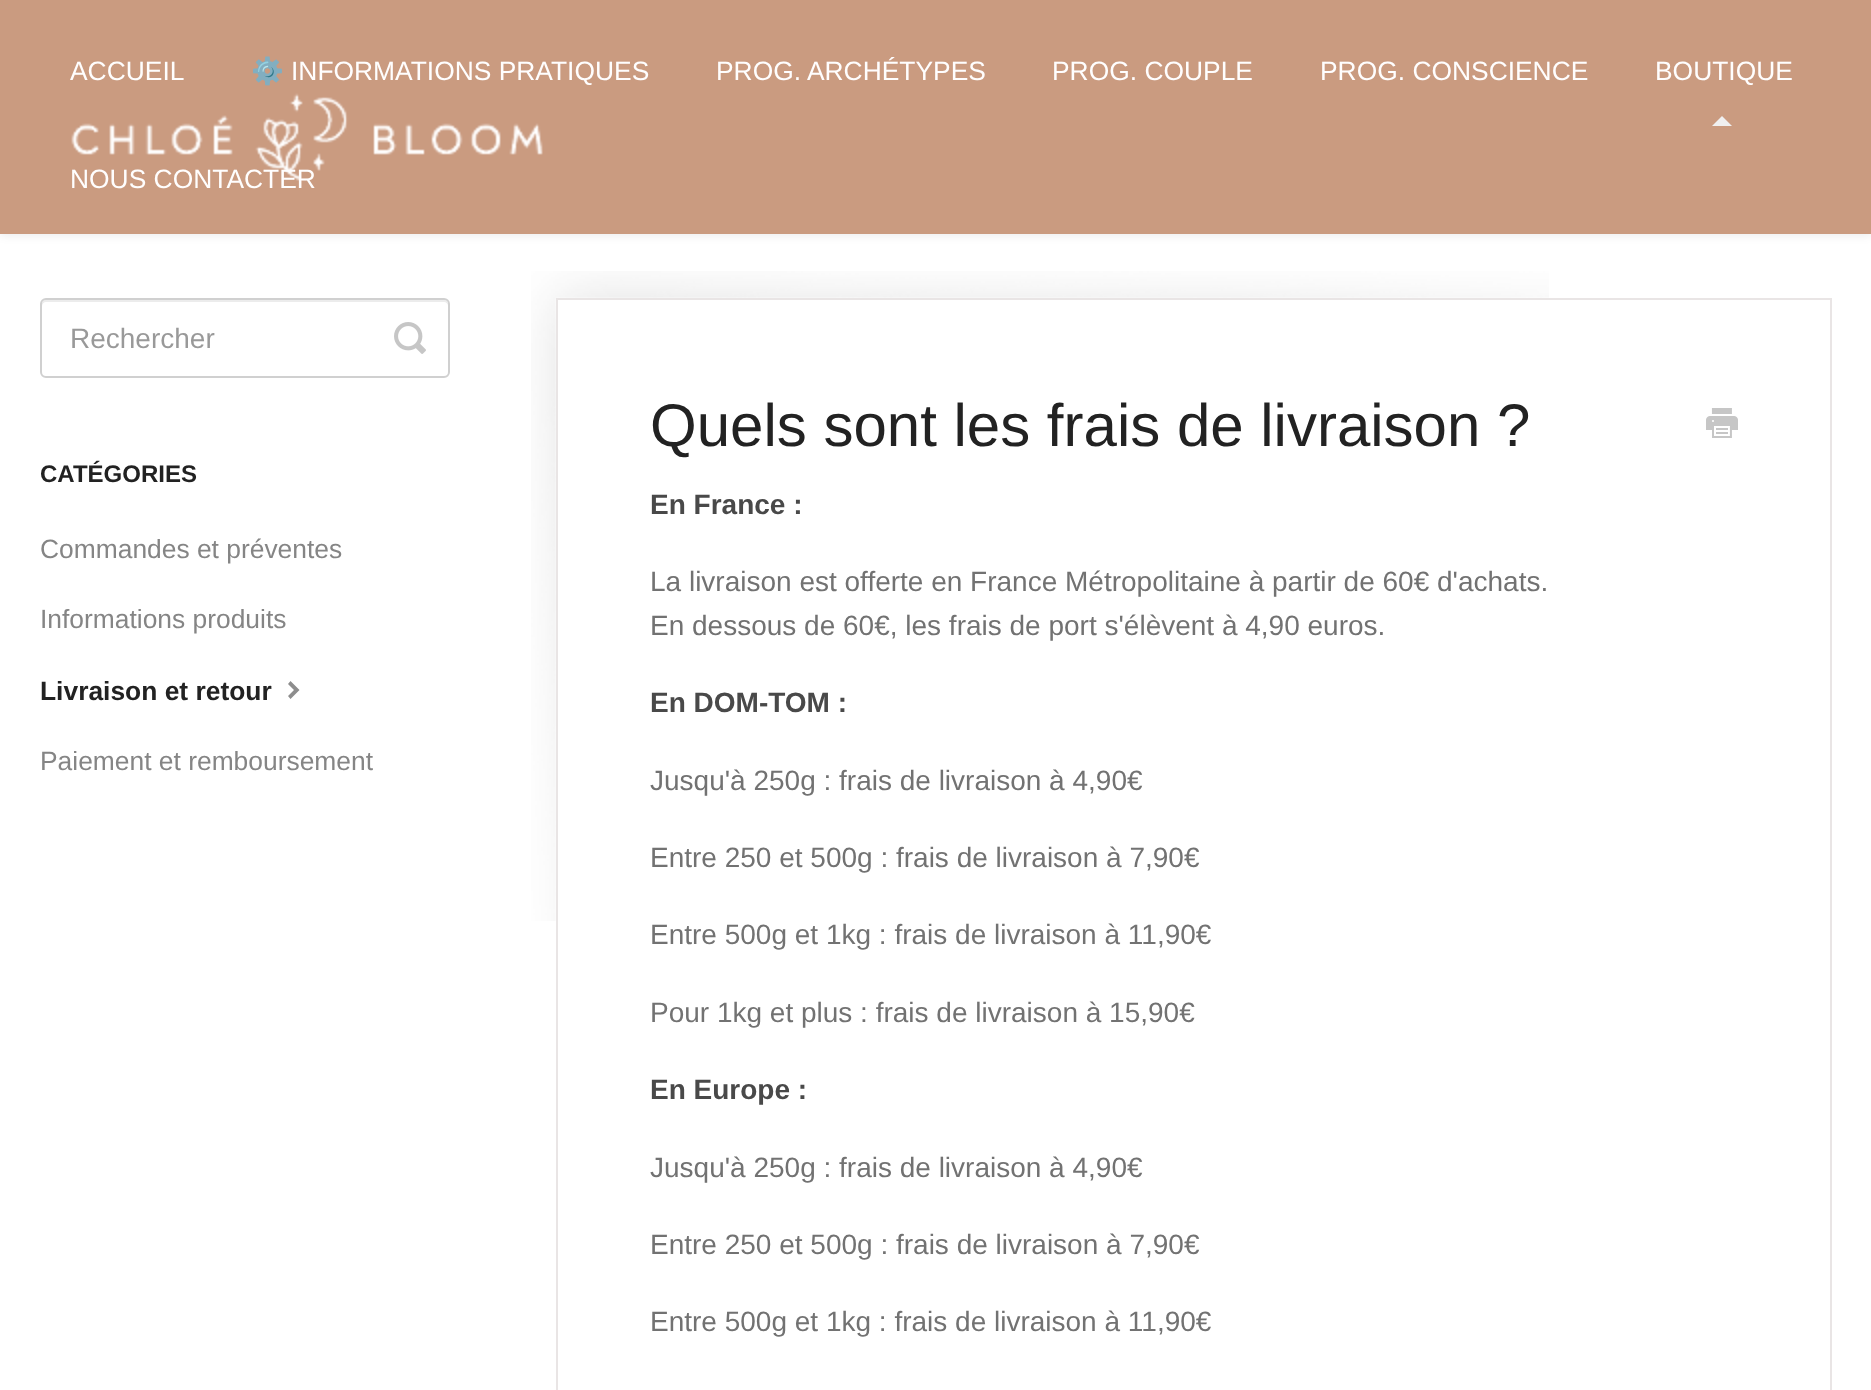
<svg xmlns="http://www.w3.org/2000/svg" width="1871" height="1390">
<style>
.a{font:26.4px Liberation Sans;fill:#fffefe}
.b{font:26.4px Noto Color Emoji;fill:#fffefe}
.c{font:28px Liberation Sans;fill:#999}
.d{font:bold 24px Liberation Sans;fill:#222}
.e{font:26.4px Liberation Sans;fill:#858585}
.f{font:bold 26.4px Liberation Sans;fill:#222}
.g{font:60px Liberation Sans;fill:#222}
.h{font:bold 28px Liberation Sans;fill:#494949}
.i{font:28px Liberation Sans;fill:#727272}
</style>
<rect width="100%" height="100%" fill="#fff"/>
<path fill="#00000012" filter="blur(4px)" d="M0 2h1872v234H0z"/>
<path fill="#ca9b80" d="M0 0h1871v234H0z"/>
<path fill="#f0f0f0" d="M1732 126h-20l10-10z"/>
<image href="1.png" x="71" y="93" width="472" height="88"/>
<path fill="#ececec" d="M46 302h398c2 0 4 2 4 4c0-3 0-6-4-6h-398c-4 0-4 3-4 6c0-2 2-4 4-4z"/>
<rect fill="none" stroke="#d0d0d0" stroke-width="2" x="41" y="299" width="408" height="78" rx="5"/>
<image href="2.png" x="394" y="322" width="32" height="32"/>
<path fill="#8d8d8d" d="M290.5 681l-2.5 3l6 6l-6 6l2.5 3l9-9z"/>
<image href="3.png" x="531" y="271" width="1018" height="650"/>
<path fill="none" stroke="#e9e5e5" stroke-width="2" d="M557 299h1274v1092H557z"/>
<image href="4.png" x="1706" y="408" width="32" height="30"/>
<text class="a" x="70" y="80">ACCUEIL</text>
<text class="b" x="251" y="80">⚙️</text>
<text class="a" x="291" y="80">INFORMATIONS PRATIQUES</text>
<text class="a" x="716" y="80">PROG. ARCHÉTYPES</text>
<text class="a" x="1052" y="80">PROG. COUPLE</text>
<text class="a" x="1320" y="80">PROG. CONSCIENCE</text>
<text class="a" x="1655" y="80">BOUTIQUE</text>
<text class="a" x="70" y="188">NOUS CONTACTER</text>
<text class="c" x="70" y="348">Rechercher</text>
<text class="d" x="40" y="482">CATÉGORIES</text>
<text class="e" x="40" y="558">Commandes et préventes</text>
<text class="e" x="40" y="628">Informations produits</text>
<text class="f" x="40" y="700">Livraison et retour</text>
<text class="e" x="40" y="770">Paiement et remboursement</text>
<text class="g" x="650" y="446">Quels sont les frais de livraison ?</text>
<text class="h" x="650" y="514">En France :</text>
<text class="i" x="650" y="591">La livraison est offerte en France Métropolitaine à partir de 60€ d'achats.</text>
<text class="i" x="650" y="635">En dessous de 60€, les frais de port s'élèvent à 4,90 euros.</text>
<text class="h" x="650" y="712">En DOM-TOM :</text>
<text class="i" x="650" y="790">Jusqu'à 250g : frais de livraison à 4,90€</text>
<text class="i" x="650" y="867">Entre 250 et 500g : frais de livraison à 7,90€</text>
<text class="i" x="650" y="944">Entre 500g et 1kg : frais de livraison à 11,90€</text>
<text class="i" x="650" y="1022">Pour 1kg et plus : frais de livraison à 15,90€</text>
<text class="h" x="650" y="1099">En Europe :</text>
<text class="i" x="650" y="1177">Jusqu'à 250g : frais de livraison à 4,90€</text>
<text class="i" x="650" y="1254">Entre 250 et 500g : frais de livraison à 7,90€</text>
<text class="i" x="650" y="1331">Entre 500g et 1kg : frais de livraison à 11,90€</text>
</svg>
